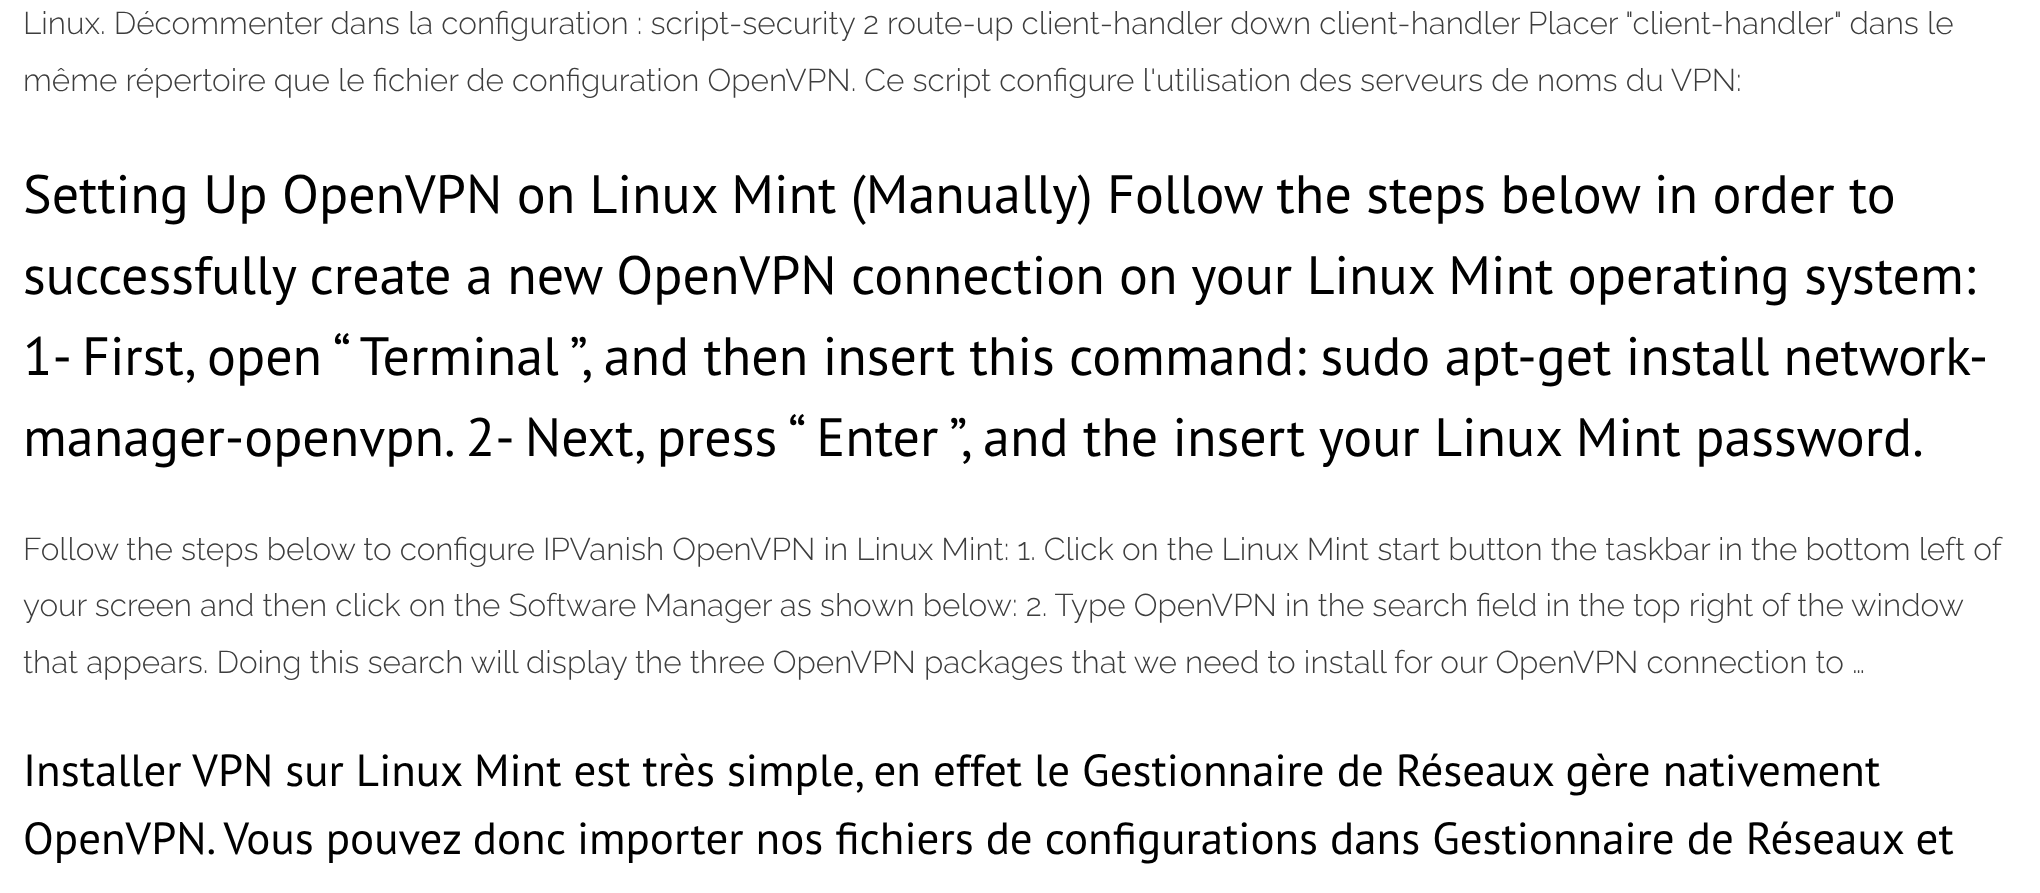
<svg xmlns="http://www.w3.org/2000/svg" width="2040" height="893">
<style>
.a{font:300 31.5px Raleway;fill:#3d3d3d}
.b{font:54px PT Sans;fill:#000}
.c{font:45px PT Sans;fill:#000}
</style>
<rect width="100%" height="100%" fill="#fff"/>
<text class="a" x="23" y="34">Linux. Décommenter dans la configuration : script-security 2 route-up client-handler down client-handler Placer "client-handler" dans le</text>
<text class="a" x="23" y="91">même répertoire que le fichier de configuration OpenVPN. Ce script configure l'utilisation des serveurs de noms du VPN:</text>
<text class="b" x="23" y="213">Setting Up OpenVPN on Linux Mint (Manually) Follow the steps below in order to</text>
<text class="b" x="23" y="294">successfully create a new OpenVPN connection on your Linux Mint operating system:</text>
<text class="b" x="23" y="375">1- First, open “ Terminal ”, and then insert this command: sudo apt-get install network-</text>
<text class="b" x="23" y="456">manager-openvpn. 2- Next, press “ Enter ”, and the insert your Linux Mint password.</text>
<text class="a" x="23" y="560">Follow the steps below to configure IPVanish OpenVPN in Linux Mint: 1. Click on the Linux Mint start button the taskbar in the bottom left of</text>
<text class="a" x="23" y="616">your screen and then click on the Software Manager as shown below: 2. Type OpenVPN in the search field in the top right of the window</text>
<text class="a" x="23" y="673">that appears. Doing this search will display the three OpenVPN packages that we need to install for our OpenVPN connection to …</text>
<text class="c" x="23" y="786">Installer VPN sur Linux Mint est très simple, en effet le Gestionnaire de Réseaux gère nativement</text>
<text class="c" x="23" y="854">OpenVPN. Vous pouvez donc importer nos fichiers de configurations dans Gestionnaire de Réseaux et</text>
</svg>
